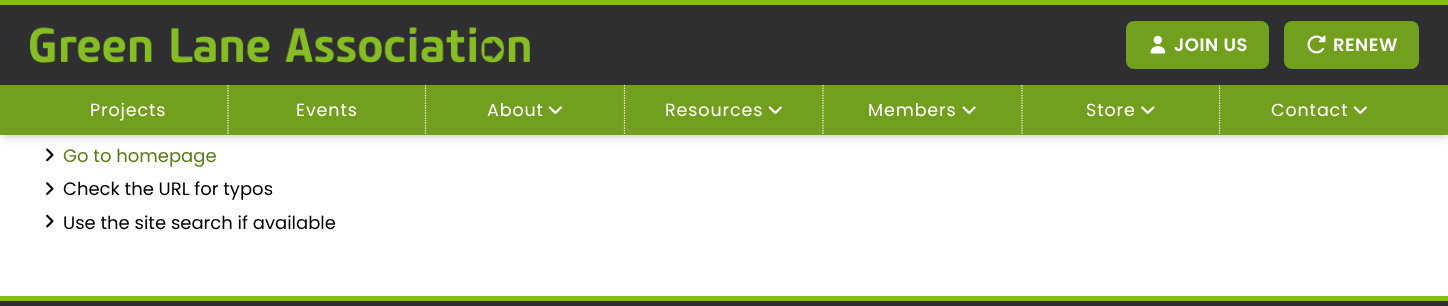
<svg xmlns="http://www.w3.org/2000/svg" width="1448" height="306">
<style>
.a{font:600 18px Poppins;letter-spacing:0.5px;fill:#fff}
.b{font:17.5px Poppins;letter-spacing:0.9px;fill:#fff}
.c{font:18px Poppins;fill:#597d17}
.d{font:18px Poppins;fill:#000}
</style>
<rect width="100%" height="100%" fill="#2f2f31"/>
<path fill="#fff" d="M0 135h1448v161H0z"/>
<path fill="#0000001a" filter="blur(2.5px)" d="M3 5h1443v130H3z"/>
<image href="7.png" x="46" y="148" width="8" height="14"/>
<path fill="#0000001a" filter="blur(4px)" d="M1 6h1447v133H1z"/>
<path fill="#86bc24" d="M0 0h1448v5H0z"/>
<path fill="#2f2f31" d="M0 5h1448v80H0z"/>
<image href="1.png" x="30" y="27" width="500" height="36"/>
<rect fill="#729f1d" x="1126" y="21" width="143" height="48" rx="8"/>
<image href="2.png" x="1150" y="35" width="16" height="19"/>
<rect fill="#729f1d" x="1284" y="21" width="135" height="48" rx="8"/>
<image href="3.png" x="1307" y="35" width="19" height="19"/>
<path fill="#729f1d" d="M0 85h1448v50H0z"/>
<path fill="none" stroke="#fff" stroke-width="1.2" stroke-dasharray="1.25 1.25" d="M228 85v50"/>
<path fill="none" stroke="#fff" stroke-width="1.2" stroke-dasharray="1.25 1.25" d="M425.5 85v50"/>
<path fill="none" stroke="#fff" stroke-width="1.2" stroke-dasharray="1.25 1.25" d="M624.5 85v50"/>
<image href="4.png" x="548" y="106" width="14" height="8"/>
<path fill="none" stroke="#fff" stroke-width="1.2" stroke-dasharray="1.25 1.25" d="M823 85v50"/>
<image href="4.png" x="768" y="106" width="14" height="8"/>
<path fill="none" stroke="#fff" stroke-width="1.2" stroke-dasharray="1.25 1.25" d="M1022 85v50"/>
<image href="5.png" x="962" y="106" width="14" height="8"/>
<path fill="none" stroke="#fff" stroke-width="1.2" stroke-dasharray="1.25 1.25" d="M1219.5 85v50"/>
<image href="6.png" x="1141" y="106" width="14" height="8"/>
<image href="4.png" x="1353" y="106" width="14" height="8"/>
<image href="8.png" x="46" y="182" width="8" height="13"/>
<image href="9.png" x="46" y="214" width="8" height="14"/>
<path fill="#86bc24" d="M0 296h1448v5H0z"/>
<text class="a" x="1174" y="51">JOIN US</text>
<text class="a" x="1333" y="51">RENEW</text>
<text class="b" x="90" y="116">Projects</text>
<text class="b" x="296" y="116">Events</text>
<text class="b" x="487" y="116">About</text>
<text class="b" x="665" y="116">Resources</text>
<text class="b" x="868" y="116">Members</text>
<text class="b" x="1086" y="116">Store</text>
<text class="b" x="1271" y="116">Contact</text>
<text class="c" x="63" y="162">Go to homepage</text>
<text class="d" x="63" y="195">Check the URL for typos</text>
<text class="d" x="63" y="229">Use the site search if available</text>
</svg>
